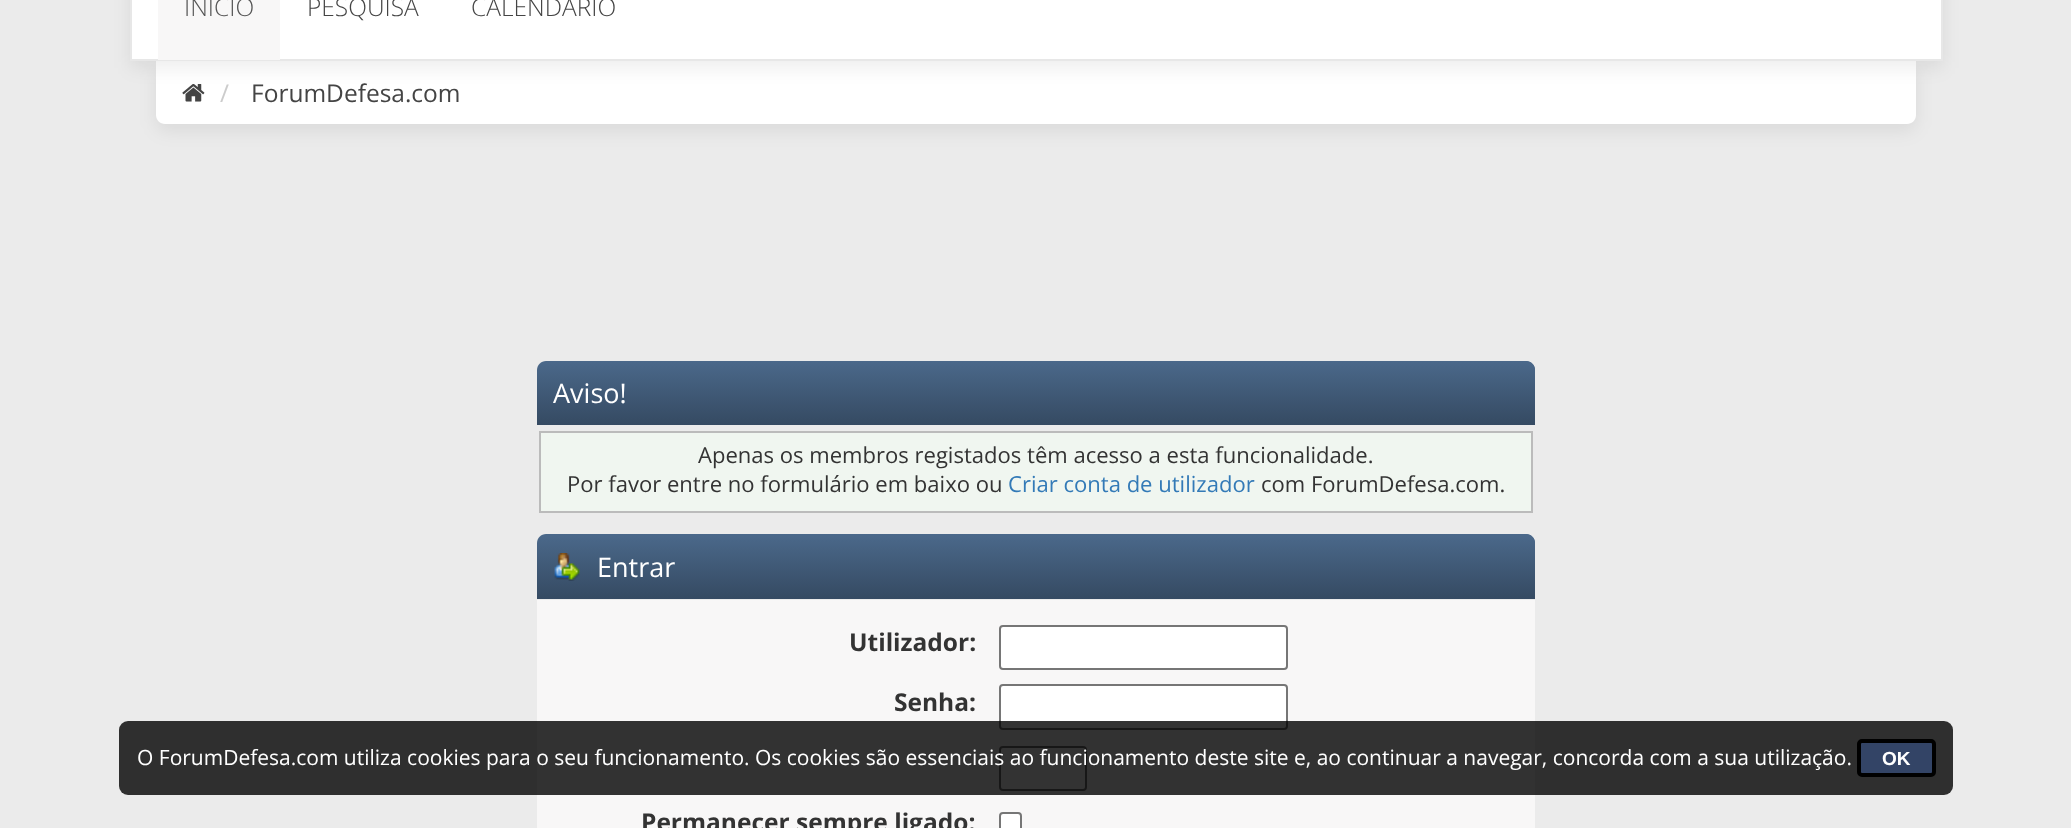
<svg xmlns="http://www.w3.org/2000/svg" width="2071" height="828">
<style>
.a{font:300 24.5px Open Sans;fill:#555}
.b{font:300 24.5px Open Sans;fill:#444}
.c{font:24.5px Open Sans;fill:#ccc}
.d{font:24.5px Open Sans;fill:#444}
.e{font:27px Open Sans;fill:#fff}
.f{font:22.05px Open Sans;fill:#333}
.g{font:22.05px Open Sans;fill:#337ab7}
.h{font:bold 24.5px Open Sans;fill:#333}
.i{font:21px Open Sans;fill:#fff}
.j{font:bold 19px Liberation Sans;fill:#fff}
</style>
<defs>
<linearGradient id="g1" gradientUnits="userSpaceOnUse" x1="1036" y1="360" x2="1036" y2="425"><stop offset="0" stop-color="#4b698b"/><stop offset="1" stop-color="#354a62"/></linearGradient>
<linearGradient id="g2" gradientUnits="userSpaceOnUse" x1="1044" y1="360" x2="1044" y2="425"><stop offset="0" stop-color="#4b698b"/><stop offset="1" stop-color="#354a62"/></linearGradient>
<linearGradient id="g3" gradientUnits="userSpaceOnUse" x1="1036" y1="534" x2="1036" y2="599"><stop offset="0" stop-color="#4b698b"/><stop offset="1" stop-color="#354a62"/></linearGradient>
<linearGradient id="g4" gradientUnits="userSpaceOnUse" x1="1044" y1="534" x2="1044" y2="599"><stop offset="0" stop-color="#4b698b"/><stop offset="1" stop-color="#354a62"/></linearGradient>
</defs>
<rect width="100%" height="100%" fill="#ebebeb"/>
<rect fill="#00000012" filter="blur(9px)" x="156" y="68" width="1760" height="63" rx="9"/>
<path fill="#fff" d="M156 61h1760v54c0 5-4 9-9 9h-1742c-5 0-9-4-9-9z"/>
<image href="1.png" x="182" y="84" width="23" height="18"/>
<path fill="#00000012" filter="blur(9px)" d="M130 -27h1813v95H130z"/>
<path fill="#fff" stroke="#e7e7e7" stroke-width="2" d="M131 -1h1811v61H131z"/>
<path fill="#f8f7f7" d="M158 0h122v60H158z"/>
<path fill="url(#g1)" d="M546 361h980c5 0 9 4 9 9v55h-998v-55c0-5 4-9 9-9z"/>
<path fill="url(#g2)" d="M553 361h973c5 0 9 4 9 9v55h-982z"/>
<path fill="#f0f6f0" stroke="#bbb" stroke-width="2" d="M540 432h992v80H540z"/>
<path fill="url(#g3)" d="M546 534h980c5 0 9 4 9 9v56h-998v-56c0-5 4-9 9-9z"/>
<path fill="url(#g4)" d="M553 534h973c5 0 9 4 9 9v56h-982z"/>
<image href="2.png" x="554" y="553" width="26" height="28"/>
<path fill="#f8f7f7" d="M537 600h998v228H537z"/>
<rect fill="#fff" stroke="#767676" stroke-width="2" x="1000" y="626" width="287" height="43" rx="3"/>
<rect fill="#fff" stroke="#767676" stroke-width="2" x="1000" y="685" width="287" height="44" rx="3"/>
<rect fill="#fff" stroke="#767676" stroke-width="2" x="1000" y="747" width="86" height="43" rx="3"/>
<rect fill="#fff" stroke="#767676" stroke-width="2" x="1000" y="813" width="21" height="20" rx="3"/>
<rect fill="#000000cc" x="119" y="721" width="1834" height="74" rx="9"/>
<rect fill="#346" stroke="#000" stroke-width="4" x="1859" y="741" width="75" height="34" rx="3"/>
<text class="a" x="184" y="16">INÍCIO</text>
<text class="b" x="307" y="16">PESQUISA</text>
<text class="b" x="471" y="16">CALENDÁRIO</text>
<text class="c" x="220" y="102">/</text>
<text class="d" x="251" y="102">ForumDefesa.com</text>
<text class="e" x="553" y="403">Aviso!</text>
<text class="f" x="698" y="463">Apenas os membros registados têm acesso a esta funcionalidade.</text>
<text class="f" x="567" y="492">Por favor entre no formulário em baixo ou</text>
<text class="g" x="1008" y="492">Criar conta de utilizador</text>
<text class="f" x="1261" y="492">com ForumDefesa.com.</text>
<text class="e" x="597" y="577">Entrar</text>
<text class="h" x="849" y="651">Utilizador:</text>
<text class="h" x="894" y="711">Senha:</text>
<text class="h" x="641" y="831">Permanecer sempre ligado:</text>
<text class="i" x="137" y="765">O ForumDefesa.com utiliza cookies para o seu funcionamento. Os cookies são essenciais ao funcionamento deste site e, ao continuar a navegar, concorda com a sua utilização.</text>
<text class="j" x="1882" y="765">OK</text>
</svg>
